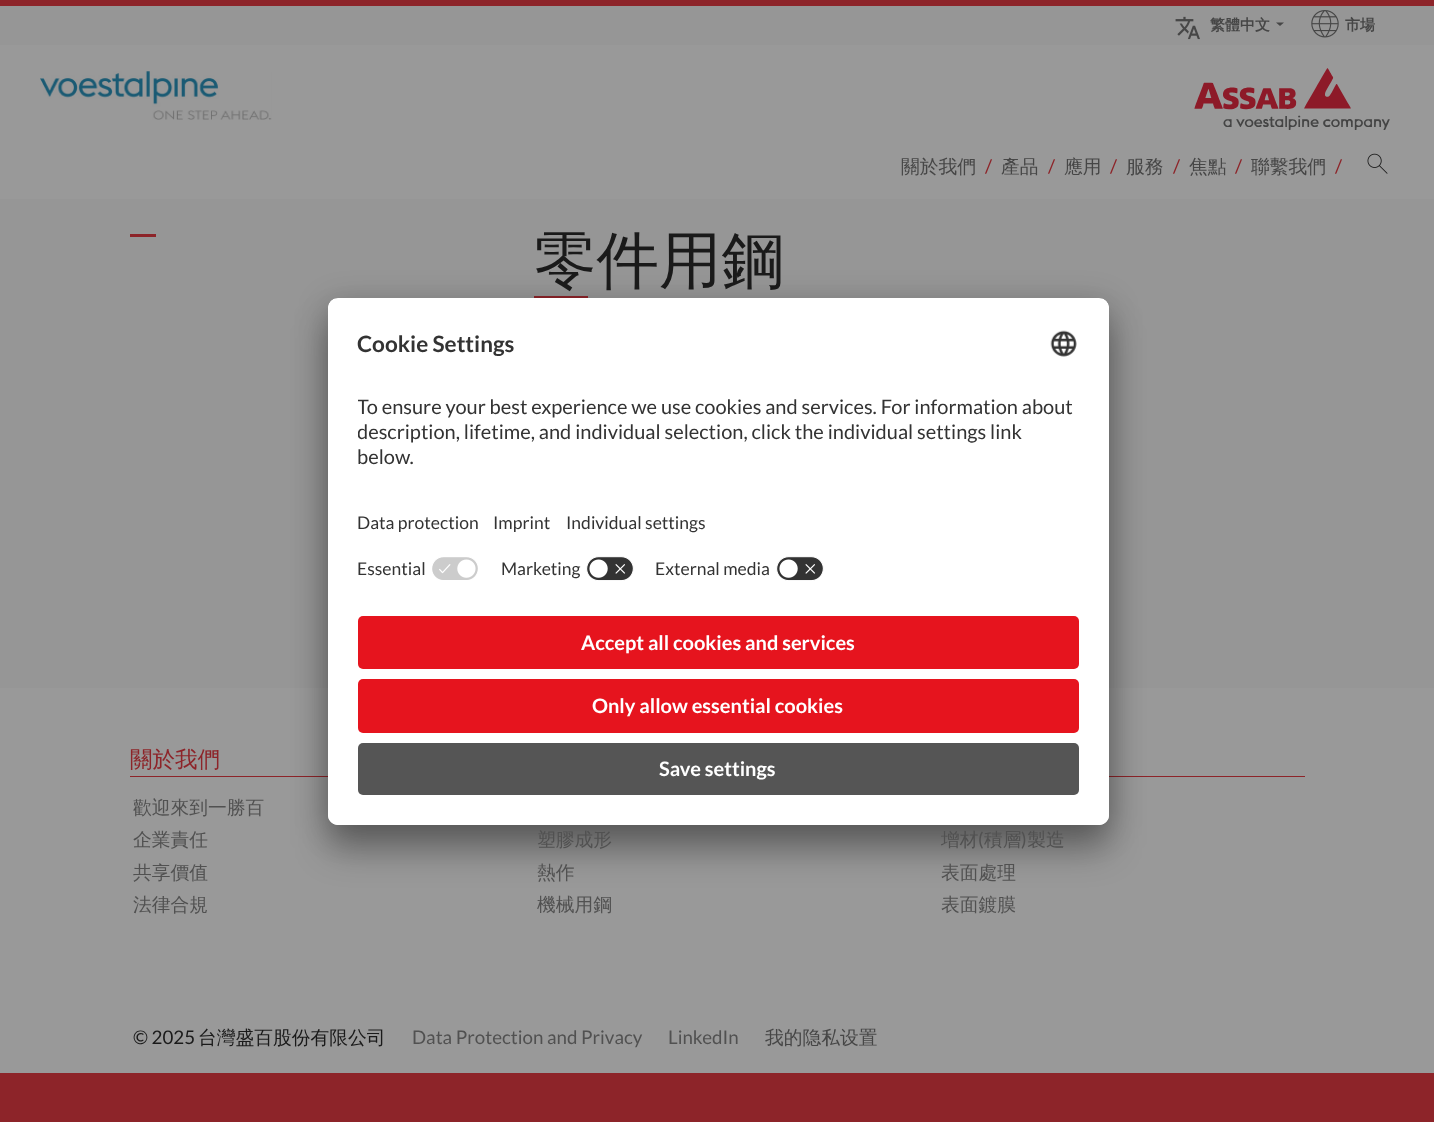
<svg xmlns="http://www.w3.org/2000/svg" width="1434" height="1122">
<style>
.a{font:bold 15px WenQuanYi Zen Hei;fill:#464646}
.b{font:500 18.75px WenQuanYi Zen Hei;fill:#464646}
.c{font:18.75px Lato;fill:#8d2429}
.d{font:500 62.5px WenQuanYi Zen Hei;fill:#1a1a1a}
.e{font:bold 22.5px Lato;fill:#333}
.f{font:20px Lato;fill:#333}
.g{font:17.5px Lato;fill:#333}
.h{font:bold 20px Lato;fill:#fff}
.i{font:500 22.5px WenQuanYi Zen Hei;fill:#8d2429}
.j{font:500 18.75px WenQuanYi Zen Hei;fill:#515151}
.k{font:18.75px Lato;fill:#515151}
.l{font:18.75px Lato;fill:#1a1a1a}
.m{font:500 18.75px WenQuanYi Zen Hei;fill:#1a1a1a}
</style>
<defs>
<clipPath id="clip1"><rect x="328" y="298" width="781" height="527" rx="10"/></clipPath>
<clipPath id="clip2"><path d="M338 298h761c5.5 0 10 4.5 10 10v293h-781v-293c0-5.5 4.5-10 10-10z"/></clipPath>
<clipPath id="clip3"><path d="M358 369h721v125H358z"/></clipPath>
</defs>
<rect width="100%" height="100%" fill="#969696"/>
<path fill="#999" d="M0 45h1434v154H0z"/>
<path fill="#8d2429" d="M0 0h1434v6H0z"/>
<image href="1.png" x="1175" y="16" width="25" height="24"/>
<path fill="#464646" d="M1276 22.5h8l-4 3.5z"/>
<image href="2.png" x="1311" y="10" width="28" height="28"/>
<image href="3.png" x="40" y="71" width="232" height="49"/>
<image href="4.png" x="1194" y="68" width="196" height="62"/>
<image href="5.png" x="1367" y="153" width="21" height="21"/>
<path fill="#8d2429" d="M130 234h26v3H130z"/>
<path fill="#8d2429" d="M534 296h54v2H534z"/>
<path fill="#999" d="M0 688h1434v385H0z"/>
<path fill="#8d2429" d="M130 776h198v1H130z"/>
<path fill="#8d2429" d="M1109 776h196v1H1109z"/>
<rect fill="#0000004d" filter="blur(17.5px)" x="328" y="323" width="781" height="527" rx="10"/>
<rect fill="#00000038" filter="blur(16px)" x="328" y="304" width="781" height="527" rx="10"/>
<rect fill="#fff" x="328" y="298" width="781" height="527" rx="10"/>
<g clip-path="url(#clip1)">
<g clip-path="url(#clip2)">
<path fill="#fff" d="M328 299h781v302H328z"/>
<path fill="#fff" d="M328 299h781v252H328z"/>
</g>
</g>
<image href="6.png" x="1050" y="330" width="27" height="27"/>
<image href="7.png" x="432" y="557" width="46" height="23"/>
<image href="8.png" x="586" y="556" width="48" height="25"/>
<image href="8.png" x="776" y="556" width="48" height="25"/>
<path fill="#fff" d="M328 601h781v214c0 5.5-4.5 10-10 10h-761c-5.5 0-10-4.5-10-10z"/>
<rect fill="#e6141e" x="358" y="616" width="721" height="53" rx="5"/>
<rect fill="#e6141e" x="358" y="679" width="721" height="54" rx="5"/>
<rect fill="#555" x="358" y="743" width="721" height="52" rx="5"/>
<path fill="#8d2429" d="M0 1073h1434v49H0z"/>
<text class="a" x="1210" y="30">繁體中文</text>
<text class="a" x="1345" y="30">市場</text>
<text class="b" x="901" y="173">關於我們</text>
<text class="c" x="985" y="173">/</text>
<text class="b" x="1001" y="173">產品</text>
<text class="c" x="1048" y="173">/</text>
<text class="b" x="1064" y="173">應用</text>
<text class="c" x="1110" y="173">/</text>
<text class="b" x="1126" y="173">服務</text>
<text class="c" x="1173" y="173">/</text>
<text class="b" x="1189" y="173">焦點</text>
<text class="c" x="1235" y="173">/</text>
<text class="b" x="1251" y="173">聯繫我們</text>
<text class="c" x="1335" y="173">/</text>
<text class="d" x="534" y="282">零件用鋼</text>
<text class="e" x="357" y="352">Cookie Settings</text>
<g clip-path="url(#clip3)">
<text class="f" x="357" y="414">To ensure your best experience we use cookies and services. For information about</text>
<text class="f" x="357" y="439">description, lifetime, and individual selection, click the individual settings link</text>
</g>
<text class="f" x="357" y="464">below.</text>
<text class="g" x="357" y="529">Data protection</text>
<text class="g" x="493" y="529">Imprint</text>
<text class="g" x="566" y="529">Individual settings</text>
<text class="g" x="357" y="575">Essential</text>
<text class="g" x="501" y="575">Marketing</text>
<text class="g" x="655" y="575">External media</text>
<text class="h" x="581" y="650">Accept all cookies and services</text>
<text class="h" x="592" y="713">Only allow essential cookies</text>
<text class="h" x="659" y="776">Save settings</text>
<text class="i" x="130" y="767">關於我們</text>
<text class="j" x="133" y="814">歡迎來到一勝百</text>
<text class="j" x="133" y="846">企業責任</text>
<text class="j" x="133" y="879">共享價值</text>
<text class="j" x="133" y="911">法律合規</text>
<text class="j" x="537" y="846">塑膠成形</text>
<text class="j" x="537" y="879">熱作</text>
<text class="j" x="537" y="911">機械用鋼</text>
<text class="j" x="941" y="846">增材 積層 製造</text>
<text class="k" x="978" y="846">(</text>
<text class="k" x="1021" y="846">)</text>
<text class="j" x="941" y="879">表面處理</text>
<text class="j" x="941" y="911">表面鍍膜</text>
<text class="l" x="133" y="1044">© 2025</text>
<text class="m" x="198" y="1044">台灣盛百股份有限公司</text>
<text class="k" x="412" y="1044">Data Protection and Privacy</text>
<text class="k" x="668" y="1044">LinkedIn</text>
<text class="b" x="765" y="1044">我的隐私设置</text>
</svg>
